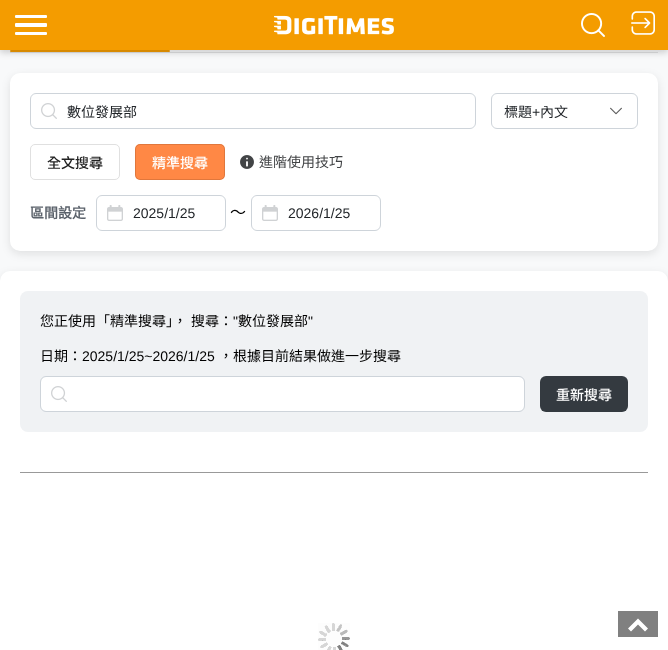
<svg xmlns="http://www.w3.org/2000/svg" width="668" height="650">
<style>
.a{font:14px Noto Sans CJK TC;fill:#212529}
.b{font:14px Liberation Sans;fill:#212529}
.c{font:500 14px Noto Sans TC;fill:#212121}
.d{font:500 14px Noto Sans TC;fill:#fff}
.e{font:14px Noto Sans CJK TC;fill:#424446}
.f{font:bold 14px Noto Sans CJK TC;fill:#5b626b}
.g{font:16px Noto Sans CJK TC;fill:#000}
.h{font:14px Noto Sans CJK TC;fill:#000}
.i{font:14px Liberation Sans;fill:#000}
</style>
<rect width="100%" height="100%" fill="#f8f9fa"/>
<path fill="#dfe0e1" d="M10 52h648v1H10z"/>
<rect fill="#f49c00" x="10" y="50" width="160" height="2" rx="1"/>
<path fill="#00000029" filter="blur(3px)" d="M0 3h668v50H0z"/>
<path fill="#f49c00" d="M0 0h668v50H0z"/>
<rect fill="#fff" x="15" y="15" width="32" height="3" rx="1"/>
<rect fill="#fff" x="15" y="23" width="32" height="4" rx="1"/>
<rect fill="#fff" x="15" y="32" width="32" height="3" rx="1"/>
<image href="1.png" x="274" y="15" width="120" height="20"/>
<image href="2.png" x="581" y="13" width="24" height="24"/>
<image href="3.png" x="631" y="11" width="24" height="24"/>
<rect fill="#0a0b0c1a" filter="blur(4px)" x="10" y="76" width="648" height="178" rx="10"/>
<rect fill="#fff" x="10" y="73" width="648" height="178" rx="10"/>
<image href="4.png" x="41" y="103" width="16" height="16"/>
<rect fill="none" stroke="#ced4da" x="30.5" y="93.5" width="445" height="35" rx="5.5"/>
<image href="5.png" x="610" y="107" width="12" height="8"/>
<rect fill="none" stroke="#ced4da" x="491.5" y="93.5" width="146" height="35" rx="5.5"/>
<rect fill="none" stroke="#e0e0e0" x="30.5" y="144.5" width="89" height="35" rx="4.5"/>
<rect fill="#ff8845" x="135" y="144" width="90" height="36" rx="5"/>
<rect fill="none" stroke="#0000001f" x="135.5" y="144.5" width="89" height="35" rx="4.5"/>
<image href="6.png" x="240" y="155" width="14" height="14"/>
<image href="7.png" x="107" y="205" width="16" height="16"/>
<rect fill="none" stroke="#ced4da" x="96.5" y="195.5" width="129" height="35" rx="5.5"/>
<image href="7.png" x="262" y="205" width="16" height="16"/>
<rect fill="none" stroke="#ced4da" x="251.5" y="195.5" width="129" height="35" rx="5.5"/>
<rect fill="#0a0b0c1a" filter="blur(4px)" y="274" width="668" height="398" rx="10"/>
<rect fill="#fff" y="271" width="668" height="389" rx="10"/>
<rect fill="#f0f2f4" x="20" y="291" width="628" height="141" rx="8"/>
<rect fill="#fff" x="41" y="377" width="483" height="34" rx="5"/>
<image href="4.png" x="51" y="386" width="16" height="16"/>
<rect fill="none" stroke="#ced4da" x="40.5" y="376.5" width="484" height="35" rx="5.5"/>
<rect fill="#343a40" x="540" y="376" width="88" height="36" rx="6"/>
<path fill="#999" d="M20 472h628v1H20z"/>
<image href="8.png" x="318" y="623" width="32" height="27"/>
<path fill="#808080" d="M618 611h40v26H618z"/>
<path fill="#fff" d="M638 618.5l-10 10l3 3l7-7l7 7l3-3z"/>
<text class="a" x="67" y="117">數位發展部</text>
<text class="a" x="504" y="117">標題</text>
<text class="b" x="532" y="117">+</text>
<text class="a" x="540" y="117">內文</text>
<text class="c" x="47" y="168">全文搜尋</text>
<text class="d" x="152" y="168">精準搜尋</text>
<text class="e" x="259" y="167">進階使用技巧</text>
<text class="f" x="30" y="218">區間設定</text>
<text class="b" x="133" y="218">2025/1/25</text>
<text class="g" x="230" y="218">～</text>
<text class="b" x="288" y="218">2026/1/25</text>
<text class="h" x="40" y="326">您正使用「精準搜尋」，</text>
<text class="h" x="191" y="326">搜尋：</text>
<text class="i" x="233" y="326">"</text>
<text class="h" x="238" y="326">數位發展部</text>
<text class="i" x="308" y="326">"</text>
<text class="h" x="40" y="361">日期：</text>
<text class="i" x="82" y="361">2025/1/25~2026/1/25</text>
<text class="h" x="219" y="361">，根據目前結果做進一步搜尋</text>
<text class="d" x="556" y="400">重新搜尋</text>
</svg>
